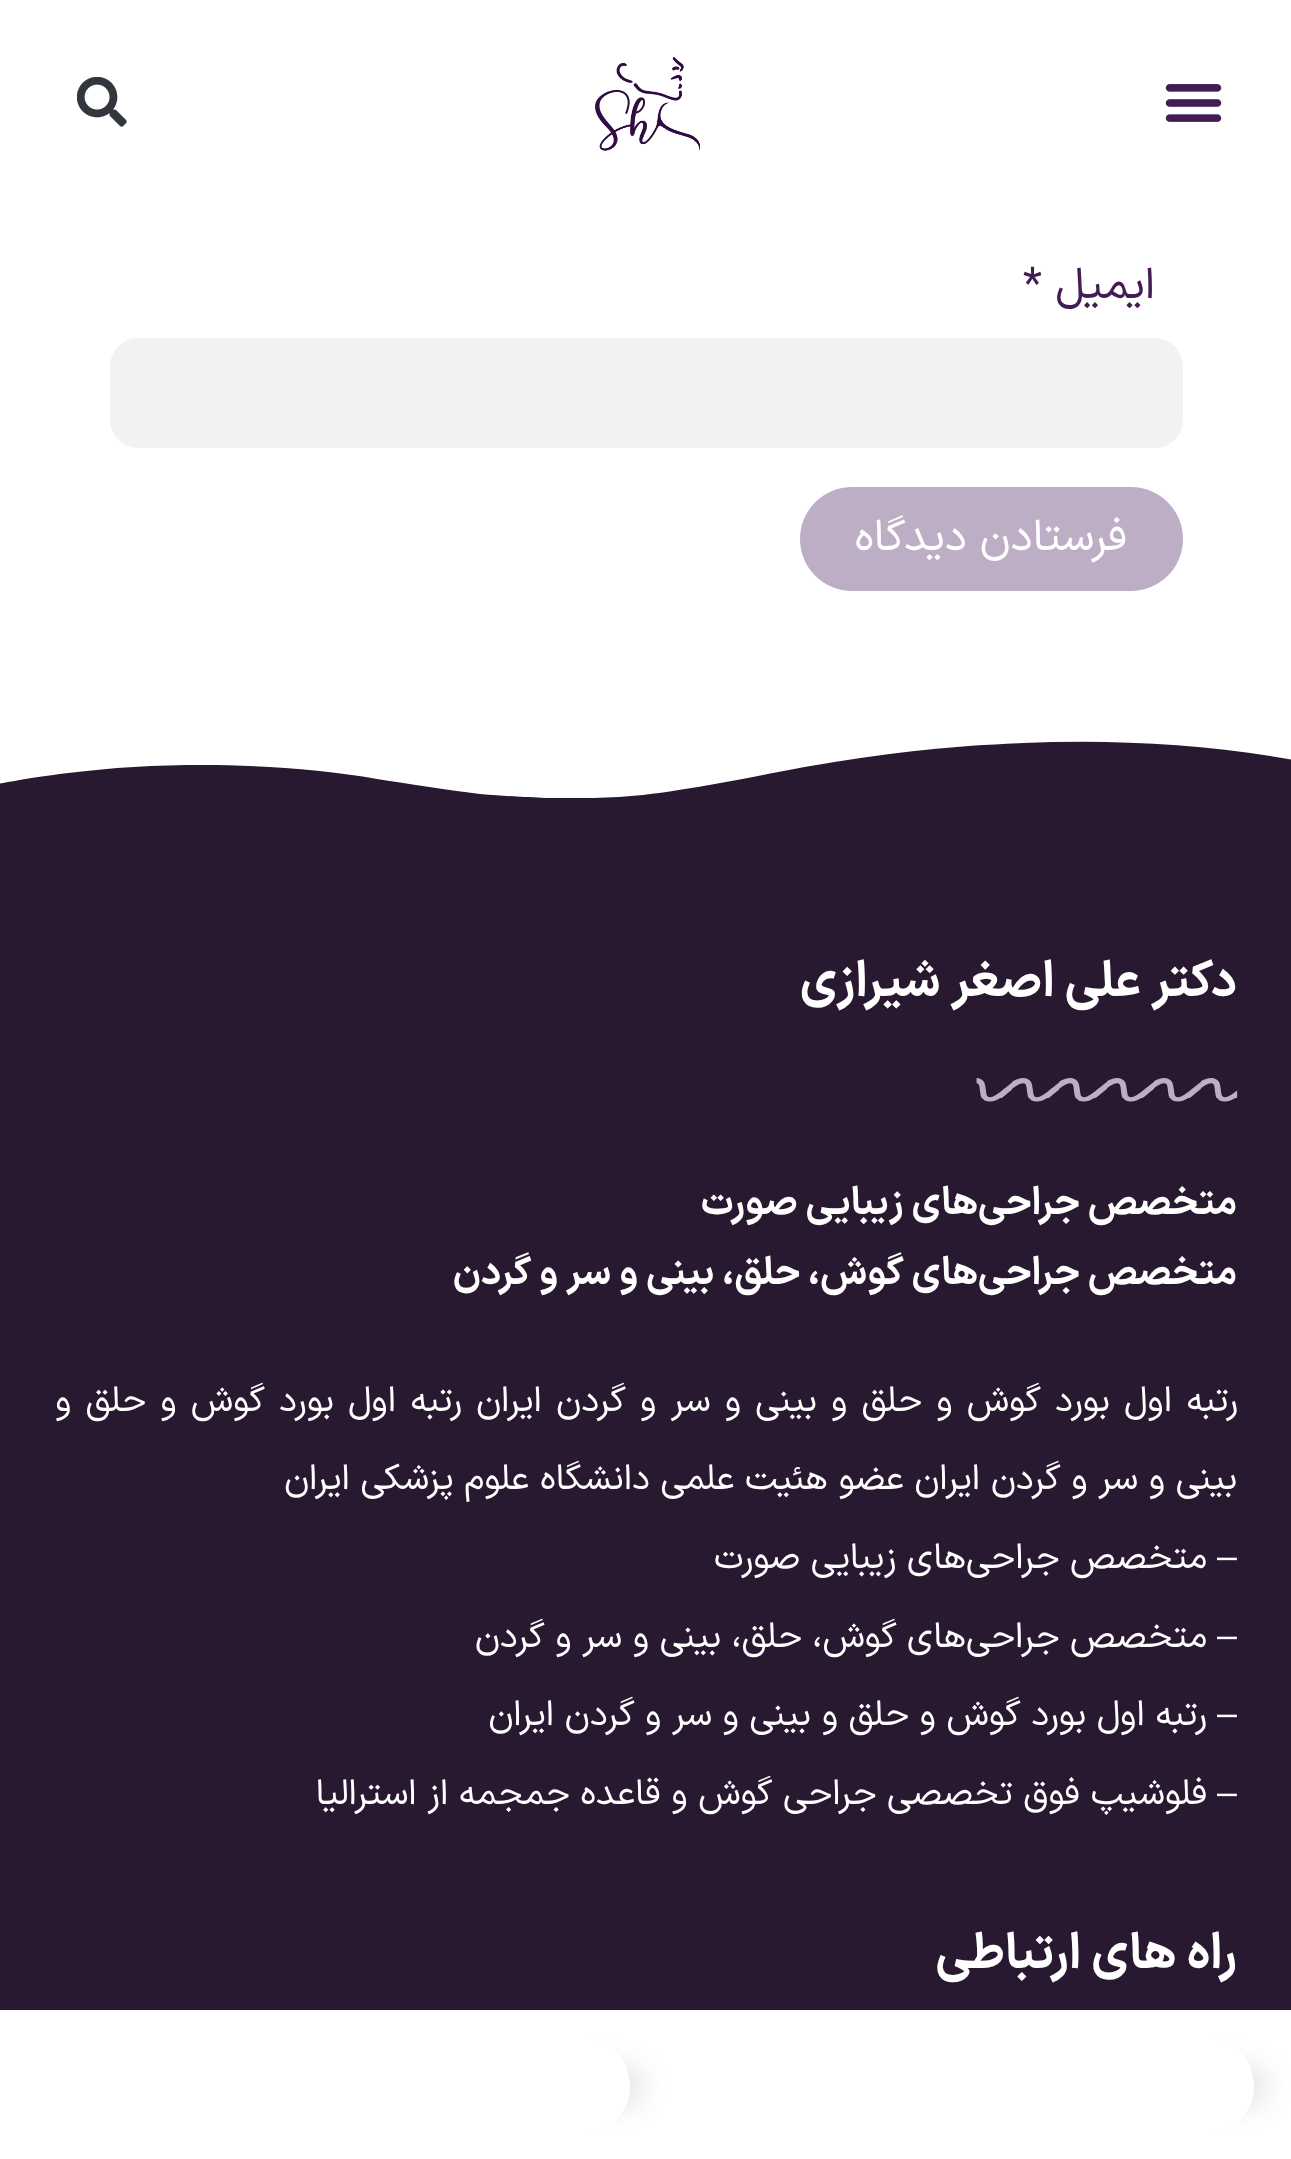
<svg xmlns="http://www.w3.org/2000/svg" width="1291" height="2159">
<style>
.a{font:44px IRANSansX;direction:rtl;fill:#421c52}
.b{font:44px IRANSansX;fill:#421c52}
.c{font:44px IRANSansX;direction:rtl;fill:#fff}
.d{font:bold 49.5px IRANSansX;direction:rtl;fill:#fff}
.e{font:bold 38.5px IRANSansX;direction:rtl;fill:#fff}
.f{font:35.75px IRANSansX;direction:rtl;fill:#fff}
.g{font:35.75px Liberation Sans;direction:rtl;fill:#fff}
</style>
<defs>
<clipPath id="clip1"><path d="M0 737h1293v61H0z"/></clipPath>
<clipPath id="clip2"><path d="M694 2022h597v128h-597zm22 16h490c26.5 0 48 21.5 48 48c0 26.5-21.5 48-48 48h-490c-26.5 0-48-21.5-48-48c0-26.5 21.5-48 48-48z" clip-rule="evenodd"/></clipPath>
<clipPath id="clip3"><path d="M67 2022h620v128h-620zm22 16h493c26.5 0 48 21.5 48 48c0 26.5-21.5 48-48 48h-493c-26.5 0-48-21.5-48-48c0-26.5 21.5-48 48-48z" clip-rule="evenodd"/></clipPath>
</defs>
<rect width="100%" height="100%" fill="#fff"/>
<image href="1.png" x="1165" y="84" width="57" height="38"/>
<image href="2.png" x="595" y="57" width="105" height="94"/>
<image href="3.png" x="77" y="77" width="50" height="50"/>
<rect fill="#f2f2f2" x="110" y="338" width="1073" height="110" rx="28"/>
<rect fill="#bdaec6" x="800" y="487" width="383" height="104" rx="52"/>
<path fill="#291930" d="M0 741h1291v1269H0z"/>
<g clip-path="url(#clip1)">
<path fill="#fff" d="M1023 743c-77 3-152 11-250 30c-38 8-100 19-130 22c-31 3-68 4-98 3c-13-1-29-1-65-4c-35-4-75-11-103-15c-53-10-123-14-173-14c-112-1-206 19-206 19v-45h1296v21c-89-16-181-21-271-17z"/>
</g>
<image href="4.png" x="976" y="1078" width="262" height="24"/>
<g clip-path="url(#clip2)">
<rect fill="#0000001a" filter="blur(14px)" x="737" y="2065" width="531" height="42" rx="21"/>
</g>
<g clip-path="url(#clip3)">
<rect fill="#0000001a" filter="blur(14px)" x="110" y="2065" width="534" height="42" rx="21"/>
</g>
<text class="a" x="1155" y="298">ایمیل</text>
<text class="b" x="1023" y="298">*</text>
<text class="c" x="1127" y="550">فرستادن دیدگاه</text>
<text class="d" x="1237" y="996">دکتر علی اصغر شیرازی</text>
<text class="e" x="1237" y="1214">متخصص جراحی‌های زیبایی صورت</text>
<text class="e" x="1237" y="1284">متخصص جراحی‌های گوش، حلق، بینی و سر و گردن</text>
<text class="f" x="1238" y="1411" word-spacing="3.6">رتبه اول بورد گوش و حلق و بینی و سر و گردن ایران رتبه اول بورد گوش و حلق و</text>
<text class="f" x="1237" y="1489">بینی و سر و گردن ایران عضو هئیت علمی دانشگاه علوم پزشکی ایران</text>
<text class="g" x="1237" y="1568">–</text>
<text class="f" x="1207" y="1568">متخصص جراحی‌های زیبایی صورت</text>
<text class="g" x="1237" y="1647">–</text>
<text class="f" x="1207" y="1647">متخصص جراحی‌های گوش، حلق، بینی و سر و گردن</text>
<text class="g" x="1237" y="1725">–</text>
<text class="f" x="1207" y="1725">رتبه اول بورد گوش و حلق و بینی و سر و گردن ایران</text>
<text class="g" x="1237" y="1804">–</text>
<text class="f" x="1207" y="1804">فلوشیپ فوق تخصصی جراحی گوش و قاعده جمجمه از استرالیا</text>
<text class="d" x="1237" y="1968">راه های ارتباطی</text>
</svg>
